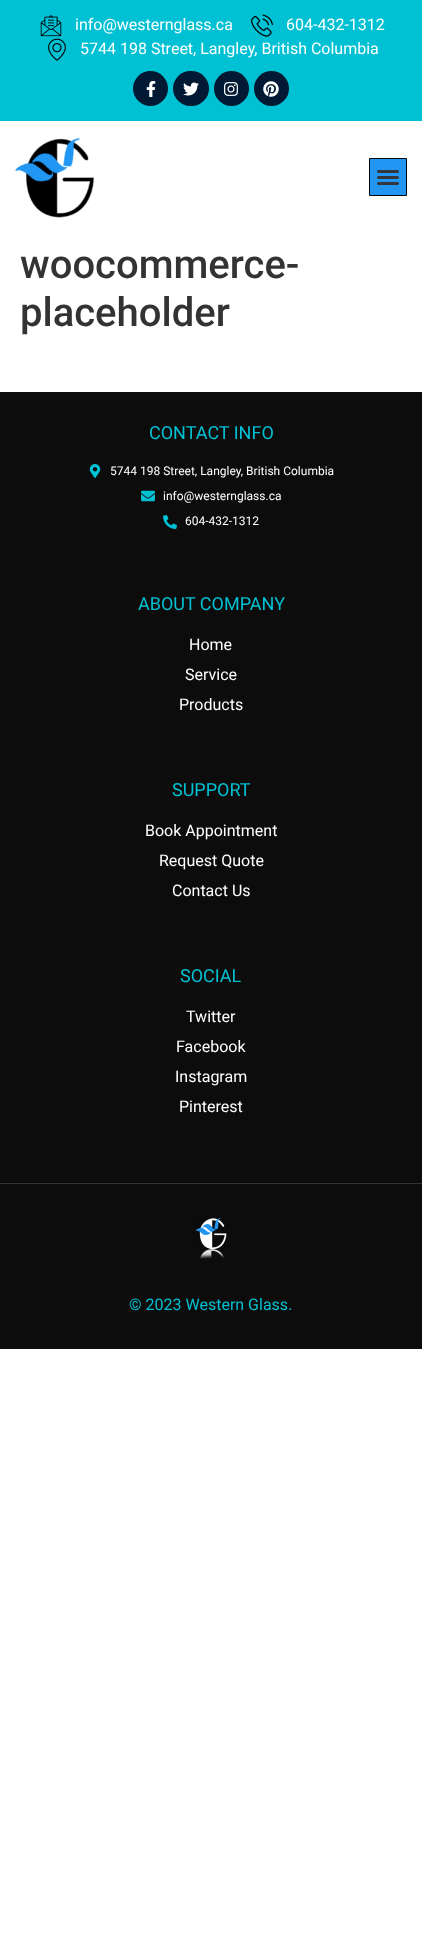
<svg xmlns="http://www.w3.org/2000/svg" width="422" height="1949">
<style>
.a{font:16px Roboto;fill:#fff}
.b{font:500 40px Roboto;fill:#333}
.c{font:18px Roboto;fill:#00c1d3}
.d{font:12px Roboto;fill:#fff}
.e{font:16px Roboto;fill:#00c1d3}
</style>
<rect width="100%" height="100%" fill="#fff"/>
<path fill="#00c1d3" d="M0 0h422v121H0z"/>
<image href="1.png" x="40" y="15" width="22" height="22"/>
<image href="2.png" x="251" y="14" width="22" height="23"/>
<image href="3.png" x="48" y="38" width="18" height="23"/>
<circle fill="#011932" cx="150.5" cy="88.5" r="17.5"/>
<image href="4.png" x="146" y="81" width="10" height="16"/>
<rect fill="#011932" x="173" y="71" width="36" height="35" rx="17.5"/>
<image href="5.png" x="183" y="82" width="16" height="14"/>
<circle fill="#011932" cx="231.5" cy="88.5" r="17.5"/>
<image href="6.png" x="224" y="82" width="14" height="14"/>
<circle fill="#011932" cx="271.5" cy="88.5" r="17.5"/>
<image href="7.png" x="263" y="81" width="16" height="16"/>
<image href="8.png" x="15" y="137" width="79" height="81"/>
<path fill="#2196f3" stroke="#040404" d="M369.5 158.5h37v37H369.5z"/>
<image href="9.png" x="377" y="170" width="22" height="15"/>
<path fill="#0c0c0c" d="M0 392h422v957H0z"/>
<path fill="#333" d="M0 1183h422v1H0z"/>
<image href="10.png" x="89" y="464" width="12" height="14"/>
<image href="11.png" x="141" y="490" width="14" height="12"/>
<image href="12.png" x="163" y="515" width="14" height="14"/>
<image href="13.png" x="195" y="1218" width="32" height="41"/>
<text class="a" x="75" y="30">info@westernglass.ca</text>
<text class="a" x="286" y="30">604-432-1312</text>
<text class="a" x="80" y="54">5744 198 Street, Langley, British Columbia</text>
<text class="b" x="20" y="278">woocommerce-</text>
<text class="b" x="20" y="326">placeholder</text>
<text class="c" x="149" y="439">CONTACT INFO</text>
<text class="d" x="110" y="475">5744 198 Street, Langley, British Columbia</text>
<text class="d" x="163" y="500">info@westernglass.ca</text>
<text class="d" x="185" y="525">604-432-1312</text>
<text class="c" x="138" y="610">ABOUT COMPANY</text>
<text class="a" x="189" y="650">Home</text>
<text class="a" x="185" y="680">Service</text>
<text class="a" x="179" y="710">Products</text>
<text class="c" x="172" y="796">SUPPORT</text>
<text class="a" x="145" y="836">Book Appointment</text>
<text class="a" x="159" y="866">Request Quote</text>
<text class="a" x="172" y="896">Contact Us</text>
<text class="c" x="180" y="982">SOCIAL</text>
<text class="a" x="186" y="1022">Twitter</text>
<text class="a" x="176" y="1052">Facebook</text>
<text class="a" x="175" y="1082">Instagram</text>
<text class="a" x="179" y="1112">Pinterest</text>
<text class="e" x="129" y="1310">© 2023 Western Glass.</text>
</svg>
